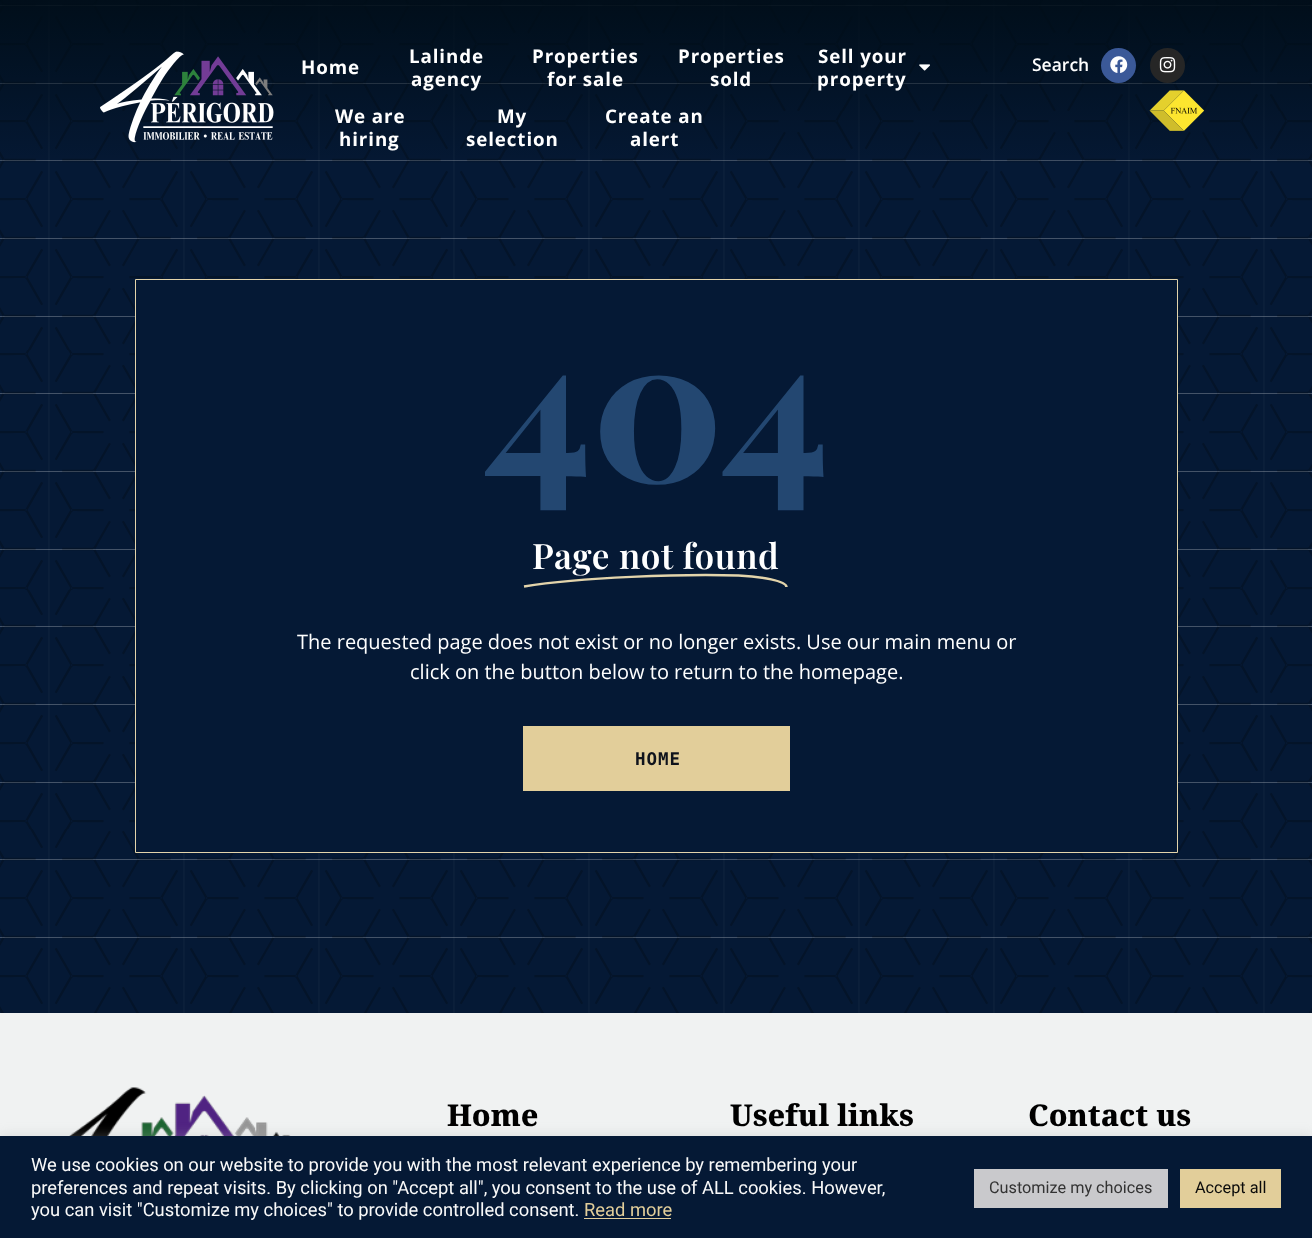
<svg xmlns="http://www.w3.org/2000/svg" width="1312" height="1238">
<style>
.a{font:bold 18.75px Open Sans;letter-spacing:0.9px;fill:#fff}
.b{font:600 17.5px Open Sans;fill:#fff}
.c{font:800 200px Playfair Display;fill:#234771}
.d{font:600 35px Playfair Display;letter-spacing:0.6px;fill:#fff}
.e{font:20px Open Sans;fill:#fff}
.f{font:bold 17.5px DejaVu Sans Mono;letter-spacing:1px;fill:#0f131c}
.g{font:800 30px Noto Serif;fill:#000}
.h{font:18.35px Roboto;fill:#f9f9f9}
.i{font:18.35px Roboto;fill:#e2ce9a}
.j{font:16.25px Roboto;fill:#333}
.k{font:16.25px Roboto;fill:#0a0a0a}
</style>
<defs>
<linearGradient id="g1" gradientUnits="userSpaceOnUse" x1="656" y1="0" x2="656" y2="194"><stop offset="0" stop-color="#000d17" stop-opacity="0.9"/><stop offset="0.9" stop-color="#000d17" stop-opacity="0"/></linearGradient>
</defs>
<rect width="100%" height="100%" fill="#fff"/>
<image href="1.png" x="0" y="0" width="1312" height="1013"/>
<path fill="url(#g1)" d="M0 0h1312v163H0z"/>
<image href="2.png" x="100" y="51" width="174" height="92"/>
<image href="3.png" x="919" y="64" width="11" height="7"/>
<circle fill="#3b5998" cx="1118.5" cy="65.5" r="17.5"/>
<image href="4.png" x="1110" y="56" width="18" height="17"/>
<circle fill="#262626" cx="1167.5" cy="65.5" r="17.5"/>
<image href="5.png" x="1159" y="57" width="17" height="16"/>
<image href="6.png" x="1149" y="90" width="56" height="41"/>
<path fill="#051935" stroke="#e3d4ab" d="M135.5 279.5h1042v573H135.5z"/>
<path fill="#e2ce9a" d="M523 726h267v65H523z"/>
<path fill="#f0f2f2" d="M0 1013h1312v123H0z"/>
<image href="7.png" x="69" y="1087" width="222" height="49"/>
<path fill="#acabab4d" filter="blur(6px)" d="M0 1135h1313v103H0z"/>
<path fill="#051935" d="M0 1136h1312v102H0z"/>
<path fill="#e2ce9a" d="M584 1218h87v1H584z"/>
<path fill="#c9c9cc" d="M974 1169h194v39H974z"/>
<path fill="#e2ce9a" d="M1180 1169h101v39H1180z"/>
<text class="a" x="301" y="74">Home</text>
<text class="a" x="409" y="63">Lalinde</text>
<text class="a" x="411" y="86">agency</text>
<text class="a" x="532" y="63">Properties</text>
<text class="a" x="547" y="86">for sale</text>
<text class="a" x="678" y="63">Properties</text>
<text class="a" x="710" y="86">sold</text>
<text class="a" x="818" y="63">Sell your</text>
<text class="a" x="817" y="86">property</text>
<text class="a" x="335" y="123">We are</text>
<text class="a" x="339" y="146">hiring</text>
<text class="a" x="497" y="123">My</text>
<text class="a" x="466" y="146">selection</text>
<text class="a" x="605" y="123">Create an</text>
<text class="a" x="630" y="146">alert</text>
<text class="b" x="1032" y="71">Search</text>
<text class="c" x="484" y="482">404</text>
<text class="d" x="532" y="569">Page not found</text>
<path fill="none" stroke="#e3d4ab" stroke-width="2.5" d="M524 586.5c55.5-9 159.5-13 214.5-11c23 1 48 5.5 48 11.5"/>
<text class="e" x="297" y="649">The requested page does not exist or no longer exists. Use our main menu or</text>
<text class="e" x="410" y="679">click on the button below to return to the homepage.</text>
<text class="f" x="635" y="765">HOME</text>
<text class="g" x="447" y="1126">Home</text>
<text class="g" x="730" y="1126">Useful links</text>
<text class="g" x="1028" y="1126">Contact us</text>
<text class="h" x="31" y="1171">We use cookies on our website to provide you with the most relevant experience by remembering your</text>
<text class="h" x="31" y="1194">preferences and repeat visits. By clicking on "Accept all", you consent to the use of ALL cookies. However,</text>
<text class="h" x="31" y="1216">you can visit "Customize my choices" to provide controlled consent.</text>
<text class="i" x="584" y="1216">Read more</text>
<text class="j" x="989" y="1193">Customize my choices</text>
<text class="k" x="1195" y="1193">Accept all</text>
</svg>
